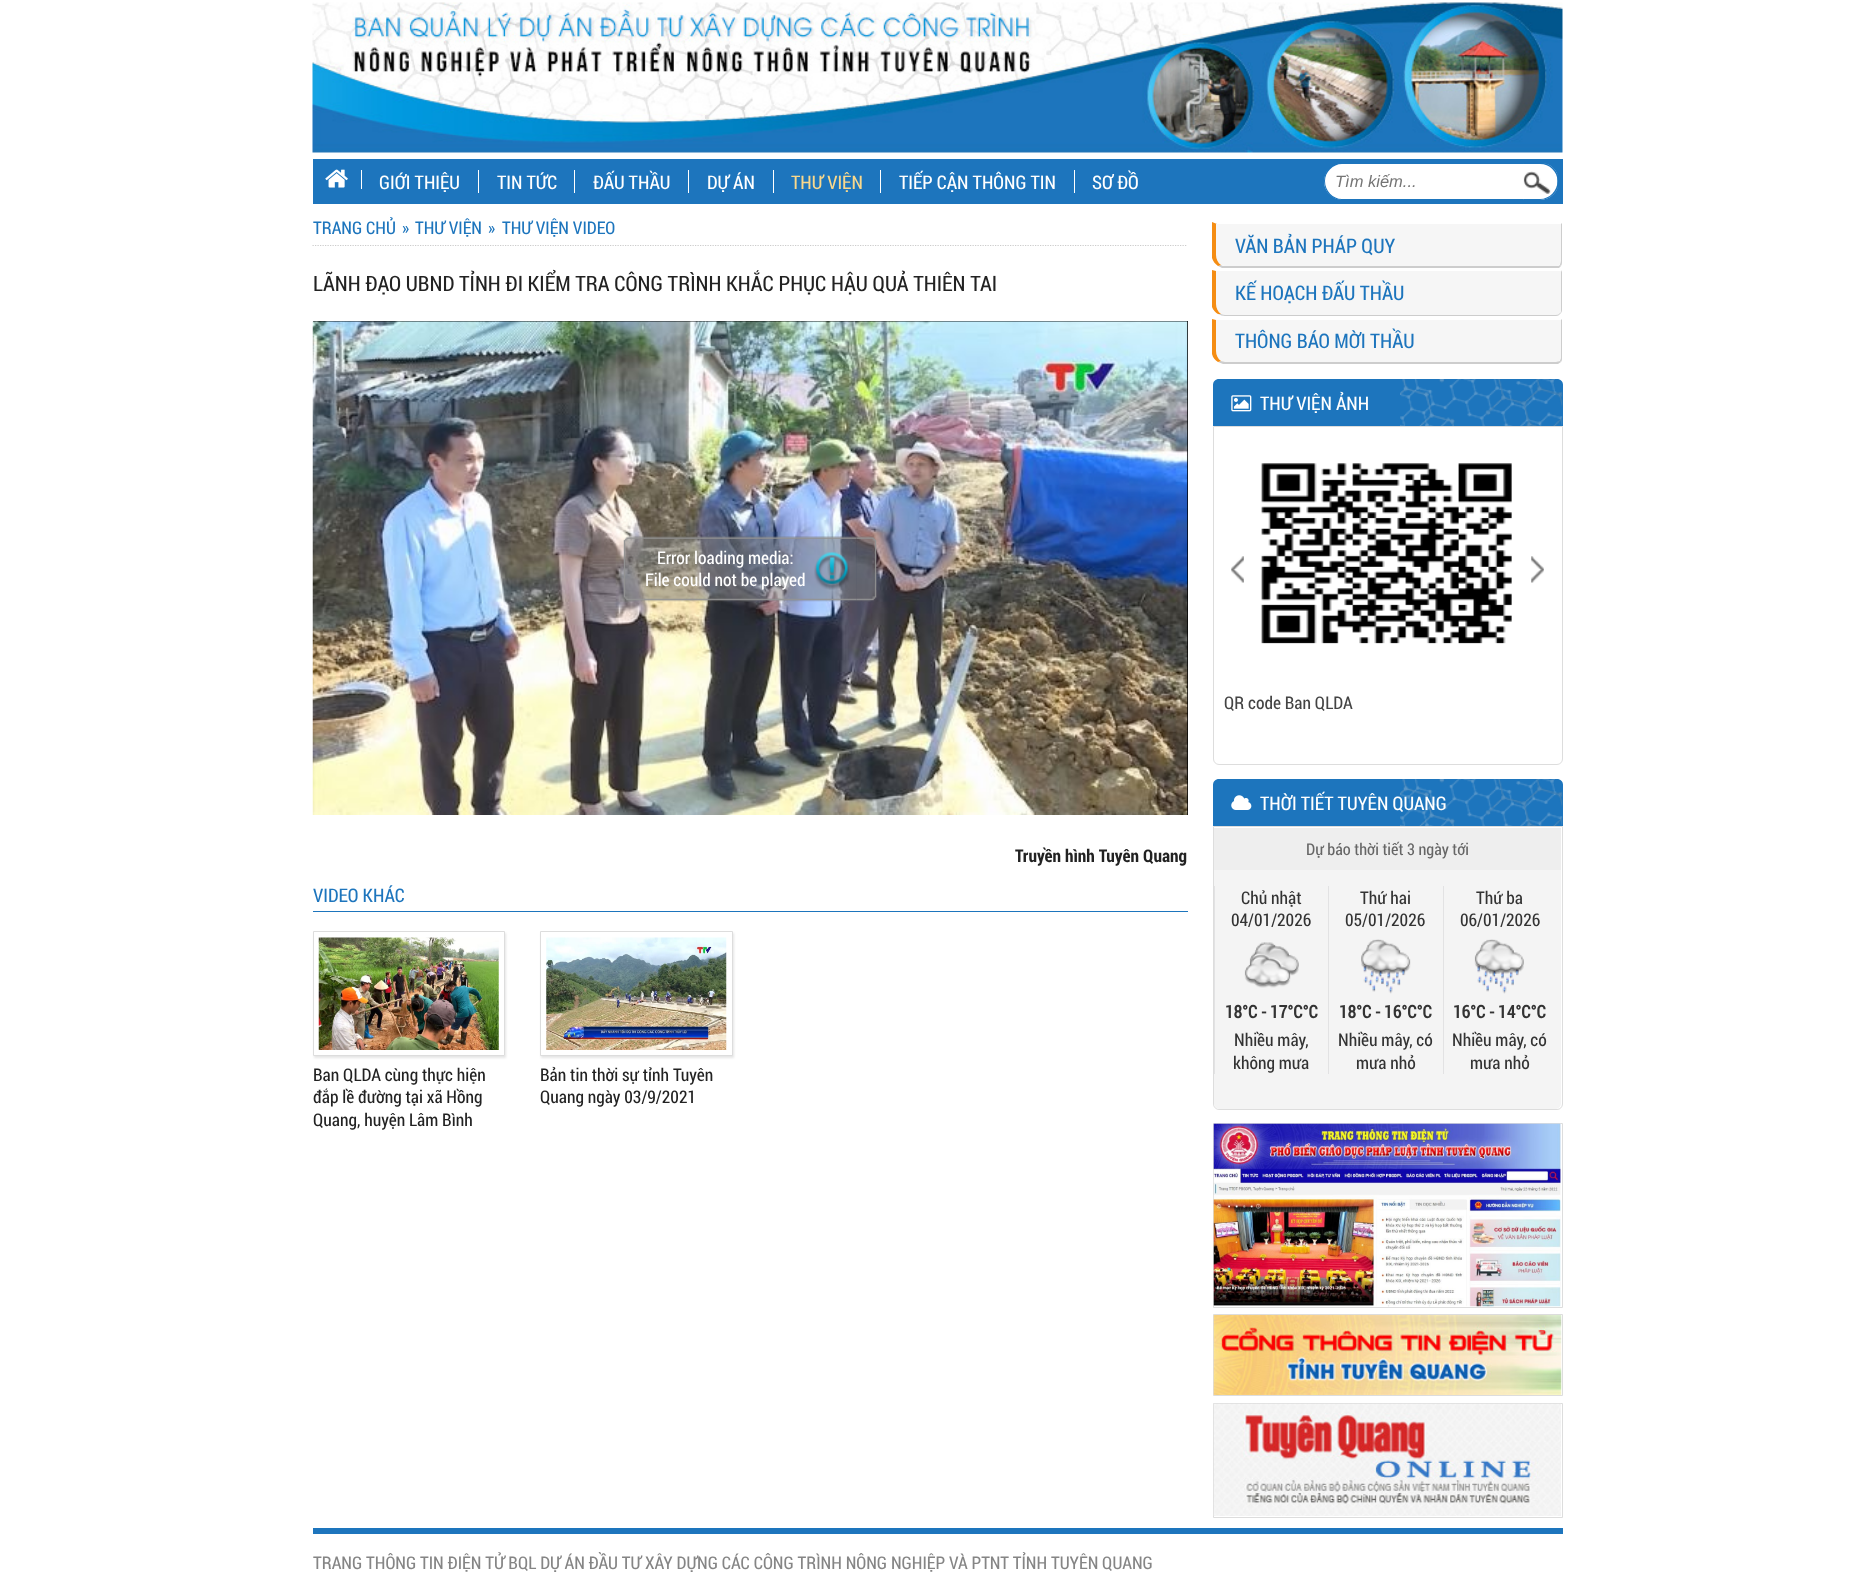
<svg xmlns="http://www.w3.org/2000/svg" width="1875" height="1576">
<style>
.a{font:18.75px Roboto Condensed;fill:#fff}
.b{font:18.75px Roboto Condensed;fill:#f9d88c}
.c{font:italic 16.5px Liberation Sans;fill:#757575}
.d{font:17.5px Roboto Condensed;fill:#1d75bd}
.e{font:21.25px Roboto Condensed;fill:#222}
.f{font:17.5px Roboto Condensed;fill:#fff}
.g{font:bold 17.5px Roboto Condensed;fill:#222}
.h{font:18.75px Roboto Condensed;fill:#1d75bd}
.i{font:17.5px Roboto Condensed;fill:#222}
.j{font:20px Roboto Condensed;fill:#1d75bd}
.k{font:17.5px Roboto Condensed;fill:#444}
.l{font:16.25px Roboto Condensed;fill:#666}
.m{font:17.5px Roboto Condensed;fill:#333}
.n{font:bold 17.5px 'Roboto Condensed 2';fill:#333}
.o{font:17.5px Roboto Condensed;fill:#858585}
</style>
<defs>
<clipPath id="clip1"><path d="M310 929h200v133h-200zm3 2h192v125h-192z" clip-rule="evenodd"/></clipPath>
<clipPath id="clip2"><path d="M1214 828h347v276c0 3-2 5-5 5h-337c-3 0-5-2-5-5z"/></clipPath>
</defs>
<rect width="100%" height="100%" fill="#fff"/>
<image href="1.png" x="312" y="2" width="1251" height="151"/>
<path fill="#1d75bd" d="M313 159h1250v45H313z"/>
<path fill="#fff" d="M361 170h1v19H361z"/>
<image href="2.png" x="325" y="169" width="23" height="19"/>
<path fill="#fff" d="M478 170h1v23H478z"/>
<path fill="#fff" d="M574 170h1v23H574z"/>
<path fill="#fff" d="M688 170h1v23H688z"/>
<path fill="#fff" d="M773 170h1v23H773z"/>
<path fill="#fff" d="M880 170h1v23H880z"/>
<path fill="#fff" d="M1074 170h1v23H1074z"/>
<path fill="#fff" d="M1342.5 163h181.5v37h-181.5c-10 0-18.5-8.5-18.5-18.5c0-10 8.5-18.5 18.5-18.5z"/>
<path fill="#1d75bd" fill-rule="evenodd" d="M1342 162h182v38h-182c-10 0-18-8-18-19c0-10 8-19 18-19zm0 2h182v35h-182c-9 0-17-8-17-18c0-9 8-17 17-17z"/>
<image href="3.png" x="1523" y="163" width="35" height="37"/>
<path fill="#1d75bd" fill-rule="evenodd" d="M1524 162.5h16c10.5 0 19 8.5 19 18.5c0 10.5-8.5 19-19 19h-16zm0 1.5h16c9.5 0 17.5 7.5 17.5 17c0 10-8 18-17.5 18h-16z"/>
<path fill="none" stroke="#ccc" stroke-width="1.2" stroke-dasharray="1.25 1.25" d="M312.5 245.5h875"/>
<path fill="#000" d="M313 321h875v494H313z"/>
<image href="4.png" x="312" y="321" width="876" height="494"/>
<image href="5.png" x="623" y="536" width="254" height="66"/>
<image href="6.png" x="814" y="552" width="36" height="38"/>
<path fill="#1d75bd" d="M313 911h875v1H313z"/>
<g clip-path="url(#clip1)">
<path fill="#e5e5e5" filter="blur(1px)" d="M314 933h192v125H314z"/>
</g>
<path fill="none" stroke="#ddd" d="M313.5 931.5h191v124H313.5z"/>
<image href="7.png" x="318" y="937" width="181" height="113"/>
<path fill="#e5e5e5" filter="blur(1px)" d="M541 933h193v125H541z"/>
<path fill="#fff" stroke="#ddd" d="M540.5 931.5h192v124H540.5z"/>
<image href="8.png" x="546" y="937" width="181" height="113"/>
<path fill="#f6f6f6" d="M1216 224h345v37c0 3-2 5-5 5h-331c-5 0-9-5-9-11z"/>
<path fill="#cdcdcd" d="M1562 223v38c0 2 0 3-1 5l-1-1c0-1 1-3 1-4v-37z"/>
<path fill="#cdcdcd" d="M1222 268l-4-2l3-1c1 1 2 1 4 1h331c2 0 3 0 4-1l1 1l-2 2z"/>
<path fill="#f58d13" d="M1216 224v31c0 4 2 8 5 10l-3 1c-3-2-5-5-6-8v-36l5 2z"/>
<path fill="#f6f6f6" d="M1216 271h345v39c0 3-2 5-5 5h-331c-5 0-9-5-9-11z"/>
<path fill="#cdcdcd" d="M1562 270v40c0 2-1 3-2 4v-1c1 0 1-2 1-3v-38z"/>
<path fill="#cdcdcd" d="M1560 314c-1 1-2 2-4 2h-331c-2 0-5-1-7-2h3c1 0 2 1 4 1h331c2 0 3-1 4-2z"/>
<path fill="#f58d13" d="M1218 314c-2-1-5-4-6-7v-37l4 1v33c0 4 2 8 5 10z"/>
<path fill="#f6f6f6" d="M1216 320h345v38c0 2-2 4-5 4h-331c-5 0-9-5-9-11z"/>
<path fill="#cdcdcd" d="M1562 319v39c0 1 0 3-1 4l-1-1c0-1 1-2 1-3v-38z"/>
<path fill="#cdcdcd" d="M1223 364l-5-2l3-1l4 1h331l4-1l1 1l-3 2z"/>
<path fill="#f58d13" d="M1216 320v31c0 4 2 8 5 10l-3 1c-3-2-5-4-6-8v-35z"/>
<path fill="#1d75bd" d="M1219 379h338c3.5 0 6 2.5 6 6v41h-350v-41c0-3.5 2.5-6 6-6z"/>
<image href="9.png" x="1400" y="379" width="163" height="47"/>
<image href="10.png" x="1231" y="395" width="21" height="17"/>
<path fill="none" stroke="#ddd" d="M1213.5 426.5h349v332.5c0 3-2.5 5.5-5.5 5.5h-338c-3 0-5.5-2.5-5.5-5.5z"/>
<image href="13.png" x="1261" y="463" width="251" height="181"/>
<image href="11.png" x="1231" y="556" width="31" height="27"/>
<image href="12.png" x="1531" y="556" width="13" height="27"/>
<path fill="#1d75bd" d="M1219 779h338c3.5 0 6 2.5 6 6v41h-350v-41c0-3.5 2.5-6 6-6z"/>
<image href="14.png" x="1400" y="779" width="163" height="47"/>
<image href="15.png" x="1231" y="795" width="21" height="15"/>
<path fill="none" stroke="#ddd" d="M1213.5 826.5h349v277.5c0 3-2.5 5.5-5.5 5.5h-338c-3 0-5.5-2.5-5.5-5.5z"/>
<g clip-path="url(#clip2)">
<path fill="#f4f4f4" d="M1214 828h347v275c0 3.5-2.5 6-6 6h-335c-3.5 0-6-2.5-6-6z"/>
</g>
<path fill="#eee" d="M1214 828h347v42H1214z"/>
<path fill="#e2e2e3" d="M1214 886h1v188H1214z"/>
<image href="16.png" x="1244" y="942" width="55" height="46"/>
<path fill="#e2e2e3" d="M1328 886h1v188H1328z"/>
<image href="17.png" x="1361" y="939" width="50" height="55"/>
<path fill="#e2e2e3" d="M1443 886h1v188H1443z"/>
<image href="18.png" x="1474" y="939" width="50" height="55"/>
<path fill="none" stroke="#ddd" d="M1213.5 1123.5h349v184H1213.5z"/>
<image href="19.png" x="1213" y="1123" width="348" height="184"/>
<path fill="none" stroke="#ddd" d="M1213.5 1314.5h349v81H1213.5z"/>
<image href="20.png" x="1213" y="1315" width="349" height="80"/>
<path fill="none" stroke="#ddd" d="M1213.5 1403.5h349v114H1213.5z"/>
<image href="21.png" x="1213" y="1403" width="348" height="113"/>
<path fill="#1d75bd" d="M313 1528h1250v6H313z"/>
<text class="a" x="379" y="189">GIỚI THIỆU</text>
<text class="a" x="497" y="189">TIN TỨC</text>
<text class="a" x="593" y="189">ĐẤU THẦU</text>
<text class="a" x="707" y="189">DỰ ÁN</text>
<text class="b" x="791" y="189">THƯ VIỆN</text>
<text class="a" x="899" y="189">TIẾP CẬN THÔNG TIN</text>
<text class="a" x="1092" y="189">SƠ ĐỒ</text>
<text class="c" x="1335" y="187">Tìm kiếm...</text>
<text class="d" x="313" y="234">TRANG CHỦ</text>
<text class="d" x="402" y="234">»</text>
<text class="d" x="415" y="234">THƯ VIỆN</text>
<text class="d" x="488" y="234">»</text>
<text class="d" x="502" y="234">THƯ VIỆN VIDEO</text>
<text class="e" x="313" y="291">LÃNH ĐẠO UBND TỈNH ĐI KIỂM TRA CÔNG TRÌNH KHẮC PHỤC HẬU QUẢ THIÊN TAI</text>
<text class="f" x="657" y="564">Error loading media:</text>
<text class="f" x="645" y="586">File could not be played</text>
<text class="g" x="1015" y="862">Truyền hình Tuyên Quang</text>
<text class="h" x="313" y="902">VIDEO KHÁC</text>
<text class="i" x="313" y="1081">Ban QLDA cùng thực hiện</text>
<text class="i" x="313" y="1103">đắp lề đường tại xã Hồng</text>
<text class="i" x="313" y="1126">Quang, huyện Lâm Bình</text>
<text class="i" x="540" y="1081">Bản tin thời sự tỉnh Tuyên</text>
<text class="i" x="540" y="1103">Quang ngày 03/9/2021</text>
<text class="j" x="1235" y="253">VĂN BẢN PHÁP QUY</text>
<text class="j" x="1235" y="300">KẾ HOẠCH ĐẤU THẦU</text>
<text class="j" x="1235" y="348">THÔNG BÁO MỜI THẦU</text>
<text class="a" x="1260" y="410">THƯ VIỆN ẢNH</text>
<text class="k" x="1224" y="709">QR code Ban QLDA</text>
<text class="a" x="1260" y="810">THỜI TIẾT TUYÊN QUANG</text>
<text class="l" x="1306" y="855">Dự báo thời tiết 3 ngày tới</text>
<text class="m" x="1241" y="904">Chủ nhật</text>
<text class="m" x="1231" y="926">04/01/2026</text>
<text class="n" x="1225" y="1018">18°C - 17°C°C</text>
<text class="m" x="1234" y="1046">Nhiều mây,</text>
<text class="m" x="1233" y="1069">không mưa</text>
<text class="m" x="1360" y="904">Thứ hai</text>
<text class="m" x="1345" y="926">05/01/2026</text>
<text class="n" x="1339" y="1018">18°C - 16°C°C</text>
<text class="m" x="1338" y="1046">Nhiều mây, có</text>
<text class="m" x="1356" y="1069">mưa nhỏ</text>
<text class="m" x="1476" y="904">Thứ ba</text>
<text class="m" x="1460" y="926">06/01/2026</text>
<text class="n" x="1453" y="1018">16°C - 14°C°C</text>
<text class="m" x="1452" y="1046">Nhiều mây, có</text>
<text class="m" x="1470" y="1069">mưa nhỏ</text>
<text class="o" x="313" y="1569">TRANG THÔNG TIN ĐIỆN TỬ BQL DỰ ÁN ĐẦU TƯ XÂY DỰNG CÁC CÔNG TRÌNH NÔNG NGHIỆP VÀ PTNT TỈNH TUYÊN QUANG</text>
</svg>
